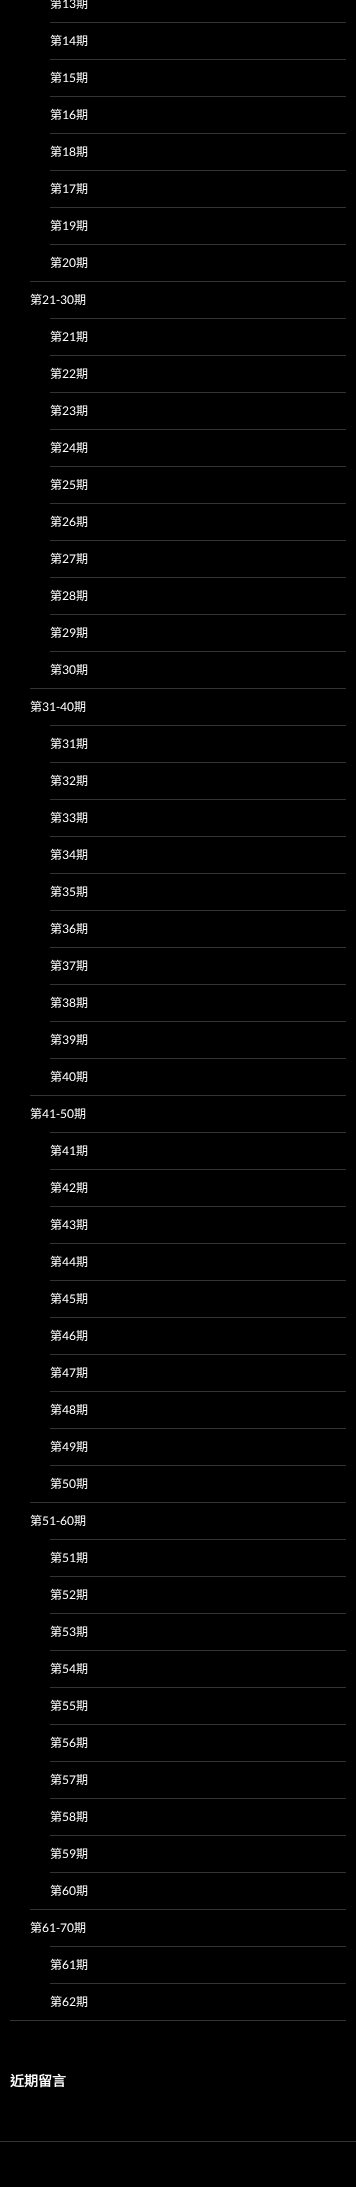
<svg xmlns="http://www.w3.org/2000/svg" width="356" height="2187">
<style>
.a{font:12px Noto Sans CJK TC;fill:#fff}
.b{font:12px Lato;fill:#fff}
.c{font:bold 14px Noto Sans CJK TC;fill:#fff}
</style>
<rect width="100%" height="100%" fill="#000"/>
<path fill="#333" d="M0 2141h356v1H0z"/>
<path fill="#333" d="M10 2020h336v1H10z"/>
<path fill="#333" d="M50 22h296v1H50z"/>
<path fill="#333" d="M50 59h296v1H50z"/>
<path fill="#333" d="M50 96h296v1H50z"/>
<path fill="#333" d="M50 133h296v1H50z"/>
<path fill="#333" d="M50 170h296v1H50z"/>
<path fill="#333" d="M50 207h296v1H50z"/>
<path fill="#333" d="M50 244h296v1H50z"/>
<path fill="#333" d="M30 281h316v1H30z"/>
<path fill="#333" d="M50 318h296v1H50z"/>
<path fill="#333" d="M50 355h296v1H50z"/>
<path fill="#333" d="M50 392h296v1H50z"/>
<path fill="#333" d="M50 429h296v1H50z"/>
<path fill="#333" d="M50 466h296v1H50z"/>
<path fill="#333" d="M50 503h296v1H50z"/>
<path fill="#333" d="M50 540h296v1H50z"/>
<path fill="#333" d="M50 577h296v1H50z"/>
<path fill="#333" d="M50 614h296v1H50z"/>
<path fill="#333" d="M50 651h296v1H50z"/>
<path fill="#333" d="M30 688h316v1H30z"/>
<path fill="#333" d="M50 725h296v1H50z"/>
<path fill="#333" d="M50 762h296v1H50z"/>
<path fill="#333" d="M50 799h296v1H50z"/>
<path fill="#333" d="M50 836h296v1H50z"/>
<path fill="#333" d="M50 873h296v1H50z"/>
<path fill="#333" d="M50 910h296v1H50z"/>
<path fill="#333" d="M50 947h296v1H50z"/>
<path fill="#333" d="M50 984h296v1H50z"/>
<path fill="#333" d="M50 1021h296v1H50z"/>
<path fill="#333" d="M50 1058h296v1H50z"/>
<path fill="#333" d="M30 1095h316v1H30z"/>
<path fill="#333" d="M50 1132h296v1H50z"/>
<path fill="#333" d="M50 1169h296v1H50z"/>
<path fill="#333" d="M50 1206h296v1H50z"/>
<path fill="#333" d="M50 1243h296v1H50z"/>
<path fill="#333" d="M50 1280h296v1H50z"/>
<path fill="#333" d="M50 1317h296v1H50z"/>
<path fill="#333" d="M50 1354h296v1H50z"/>
<path fill="#333" d="M50 1391h296v1H50z"/>
<path fill="#333" d="M50 1428h296v1H50z"/>
<path fill="#333" d="M50 1465h296v1H50z"/>
<path fill="#333" d="M30 1502h316v1H30z"/>
<path fill="#333" d="M50 1539h296v1H50z"/>
<path fill="#333" d="M50 1576h296v1H50z"/>
<path fill="#333" d="M50 1613h296v1H50z"/>
<path fill="#333" d="M50 1650h296v1H50z"/>
<path fill="#333" d="M50 1687h296v1H50z"/>
<path fill="#333" d="M50 1724h296v1H50z"/>
<path fill="#333" d="M50 1761h296v1H50z"/>
<path fill="#333" d="M50 1798h296v1H50z"/>
<path fill="#333" d="M50 1835h296v1H50z"/>
<path fill="#333" d="M50 1872h296v1H50z"/>
<path fill="#333" d="M30 1909h316v1H30z"/>
<path fill="#333" d="M50 1946h296v1H50z"/>
<path fill="#333" d="M50 1983h296v1H50z"/>
<text class="a" x="50" y="8">第</text>
<text class="b" x="62" y="8">13</text>
<text class="a" x="76" y="8">期</text>
<text class="a" x="50" y="45">第</text>
<text class="b" x="62" y="45">14</text>
<text class="a" x="76" y="45">期</text>
<text class="a" x="50" y="82">第</text>
<text class="b" x="62" y="82">15</text>
<text class="a" x="76" y="82">期</text>
<text class="a" x="50" y="119">第</text>
<text class="b" x="62" y="119">16</text>
<text class="a" x="76" y="119">期</text>
<text class="a" x="50" y="156">第</text>
<text class="b" x="62" y="156">18</text>
<text class="a" x="76" y="156">期</text>
<text class="a" x="50" y="193">第</text>
<text class="b" x="62" y="193">17</text>
<text class="a" x="76" y="193">期</text>
<text class="a" x="50" y="230">第</text>
<text class="b" x="62" y="230">19</text>
<text class="a" x="76" y="230">期</text>
<text class="a" x="50" y="267">第</text>
<text class="b" x="62" y="267">20</text>
<text class="a" x="76" y="267">期</text>
<text class="a" x="30" y="304">第</text>
<text class="b" x="42" y="304">21-30</text>
<text class="a" x="74" y="304">期</text>
<text class="a" x="50" y="341">第</text>
<text class="b" x="62" y="341">21</text>
<text class="a" x="76" y="341">期</text>
<text class="a" x="50" y="378">第</text>
<text class="b" x="62" y="378">22</text>
<text class="a" x="76" y="378">期</text>
<text class="a" x="50" y="415">第</text>
<text class="b" x="62" y="415">23</text>
<text class="a" x="76" y="415">期</text>
<text class="a" x="50" y="452">第</text>
<text class="b" x="62" y="452">24</text>
<text class="a" x="76" y="452">期</text>
<text class="a" x="50" y="489">第</text>
<text class="b" x="62" y="489">25</text>
<text class="a" x="76" y="489">期</text>
<text class="a" x="50" y="526">第</text>
<text class="b" x="62" y="526">26</text>
<text class="a" x="76" y="526">期</text>
<text class="a" x="50" y="563">第</text>
<text class="b" x="62" y="563">27</text>
<text class="a" x="76" y="563">期</text>
<text class="a" x="50" y="600">第</text>
<text class="b" x="62" y="600">28</text>
<text class="a" x="76" y="600">期</text>
<text class="a" x="50" y="637">第</text>
<text class="b" x="62" y="637">29</text>
<text class="a" x="76" y="637">期</text>
<text class="a" x="50" y="674">第</text>
<text class="b" x="62" y="674">30</text>
<text class="a" x="76" y="674">期</text>
<text class="a" x="30" y="711">第</text>
<text class="b" x="42" y="711">31-40</text>
<text class="a" x="74" y="711">期</text>
<text class="a" x="50" y="748">第</text>
<text class="b" x="62" y="748">31</text>
<text class="a" x="76" y="748">期</text>
<text class="a" x="50" y="785">第</text>
<text class="b" x="62" y="785">32</text>
<text class="a" x="76" y="785">期</text>
<text class="a" x="50" y="822">第</text>
<text class="b" x="62" y="822">33</text>
<text class="a" x="76" y="822">期</text>
<text class="a" x="50" y="859">第</text>
<text class="b" x="62" y="859">34</text>
<text class="a" x="76" y="859">期</text>
<text class="a" x="50" y="896">第</text>
<text class="b" x="62" y="896">35</text>
<text class="a" x="76" y="896">期</text>
<text class="a" x="50" y="933">第</text>
<text class="b" x="62" y="933">36</text>
<text class="a" x="76" y="933">期</text>
<text class="a" x="50" y="970">第</text>
<text class="b" x="62" y="970">37</text>
<text class="a" x="76" y="970">期</text>
<text class="a" x="50" y="1007">第</text>
<text class="b" x="62" y="1007">38</text>
<text class="a" x="76" y="1007">期</text>
<text class="a" x="50" y="1044">第</text>
<text class="b" x="62" y="1044">39</text>
<text class="a" x="76" y="1044">期</text>
<text class="a" x="50" y="1081">第</text>
<text class="b" x="62" y="1081">40</text>
<text class="a" x="76" y="1081">期</text>
<text class="a" x="30" y="1118">第</text>
<text class="b" x="42" y="1118">41-50</text>
<text class="a" x="74" y="1118">期</text>
<text class="a" x="50" y="1155">第</text>
<text class="b" x="62" y="1155">41</text>
<text class="a" x="76" y="1155">期</text>
<text class="a" x="50" y="1192">第</text>
<text class="b" x="62" y="1192">42</text>
<text class="a" x="76" y="1192">期</text>
<text class="a" x="50" y="1229">第</text>
<text class="b" x="62" y="1229">43</text>
<text class="a" x="76" y="1229">期</text>
<text class="a" x="50" y="1266">第</text>
<text class="b" x="62" y="1266">44</text>
<text class="a" x="76" y="1266">期</text>
<text class="a" x="50" y="1303">第</text>
<text class="b" x="62" y="1303">45</text>
<text class="a" x="76" y="1303">期</text>
<text class="a" x="50" y="1340">第</text>
<text class="b" x="62" y="1340">46</text>
<text class="a" x="76" y="1340">期</text>
<text class="a" x="50" y="1377">第</text>
<text class="b" x="62" y="1377">47</text>
<text class="a" x="76" y="1377">期</text>
<text class="a" x="50" y="1414">第</text>
<text class="b" x="62" y="1414">48</text>
<text class="a" x="76" y="1414">期</text>
<text class="a" x="50" y="1451">第</text>
<text class="b" x="62" y="1451">49</text>
<text class="a" x="76" y="1451">期</text>
<text class="a" x="50" y="1488">第</text>
<text class="b" x="62" y="1488">50</text>
<text class="a" x="76" y="1488">期</text>
<text class="a" x="30" y="1525">第</text>
<text class="b" x="42" y="1525">51-60</text>
<text class="a" x="74" y="1525">期</text>
<text class="a" x="50" y="1562">第</text>
<text class="b" x="62" y="1562">51</text>
<text class="a" x="76" y="1562">期</text>
<text class="a" x="50" y="1599">第</text>
<text class="b" x="62" y="1599">52</text>
<text class="a" x="76" y="1599">期</text>
<text class="a" x="50" y="1636">第</text>
<text class="b" x="62" y="1636">53</text>
<text class="a" x="76" y="1636">期</text>
<text class="a" x="50" y="1673">第</text>
<text class="b" x="62" y="1673">54</text>
<text class="a" x="76" y="1673">期</text>
<text class="a" x="50" y="1710">第</text>
<text class="b" x="62" y="1710">55</text>
<text class="a" x="76" y="1710">期</text>
<text class="a" x="50" y="1747">第</text>
<text class="b" x="62" y="1747">56</text>
<text class="a" x="76" y="1747">期</text>
<text class="a" x="50" y="1784">第</text>
<text class="b" x="62" y="1784">57</text>
<text class="a" x="76" y="1784">期</text>
<text class="a" x="50" y="1821">第</text>
<text class="b" x="62" y="1821">58</text>
<text class="a" x="76" y="1821">期</text>
<text class="a" x="50" y="1858">第</text>
<text class="b" x="62" y="1858">59</text>
<text class="a" x="76" y="1858">期</text>
<text class="a" x="50" y="1895">第</text>
<text class="b" x="62" y="1895">60</text>
<text class="a" x="76" y="1895">期</text>
<text class="a" x="30" y="1932">第</text>
<text class="b" x="42" y="1932">61-70</text>
<text class="a" x="74" y="1932">期</text>
<text class="a" x="50" y="1969">第</text>
<text class="b" x="62" y="1969">61</text>
<text class="a" x="76" y="1969">期</text>
<text class="a" x="50" y="2006">第</text>
<text class="b" x="62" y="2006">62</text>
<text class="a" x="76" y="2006">期</text>
<text class="c" x="10" y="2086">近期留言</text>
</svg>
